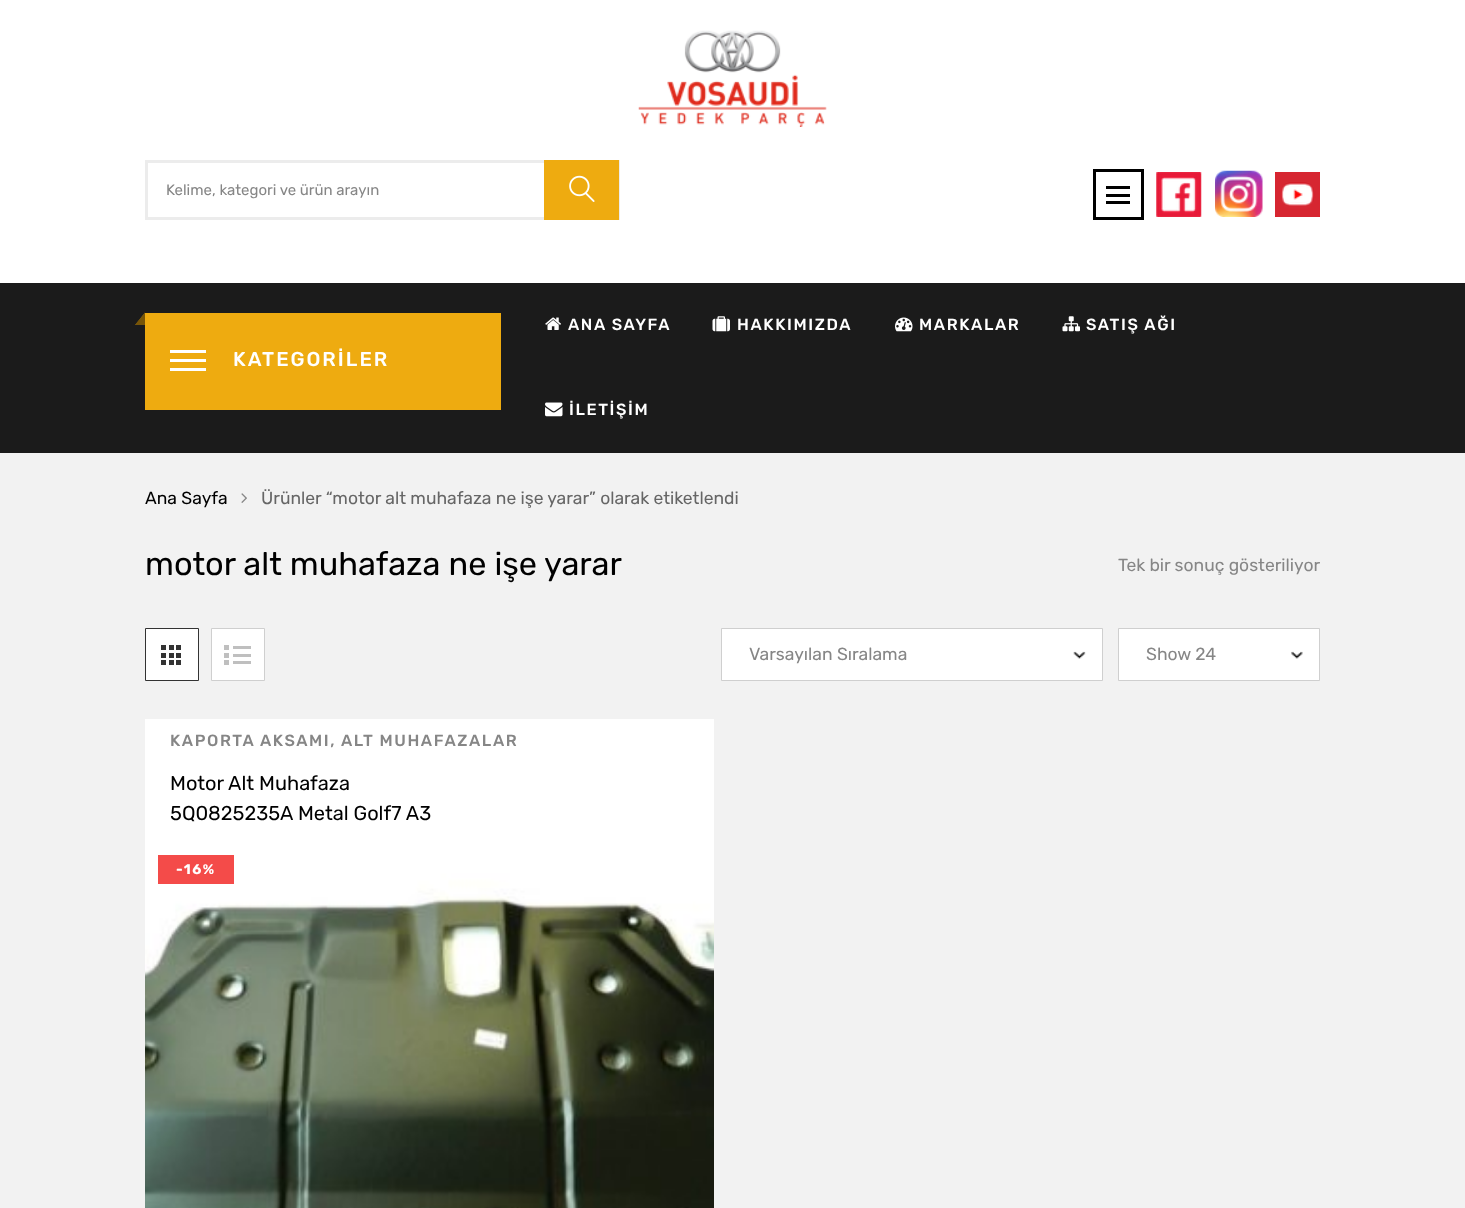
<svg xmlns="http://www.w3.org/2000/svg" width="1465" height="1208">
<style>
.a{font:15px Rubik;fill:#868686}
.b{font:500 20px Rubik;letter-spacing:2px;fill:#fff}
.c{font:500 16.25px Rubik;letter-spacing:1.6px;fill:#fff}
.d{font:17.5px Rubik;fill:#000}
.e{font:17.5px Rubik;fill:#666}
.f{font:32.5px Rubik;fill:#000}
.g{font:17.5px Rubik;fill:#868686}
.h{font:500 16.25px Rubik;letter-spacing:1.6px;fill:#868686}
.i{font:20px Rubik;fill:#000}
.j{font:bold 14px Rubik;letter-spacing:1.5px;fill:#fff}
</style>
<rect width="100%" height="100%" fill="#fff"/>
<image href="1.png" x="638" y="30" width="189" height="97"/>
<path fill="none" stroke="#ececec" stroke-width="3" d="M146.5 161.5h472v57H146.5z"/>
<path fill="#eeab10" d="M544 160h75v60H544z"/>
<image href="2.png" x="569" y="175" width="26" height="27"/>
<path fill="none" stroke="#000" stroke-width="3" d="M1094.5 170.5h48v48H1094.5z"/>
<path fill="#000" d="M1106 186h24v3H1106z"/>
<path fill="#000" d="M1106 194h24v3H1106z"/>
<path fill="#000" d="M1106 201h24v3H1106z"/>
<image href="3.png" x="1156" y="172" width="46" height="45"/>
<image href="4.png" x="1215" y="170" width="48" height="47"/>
<image href="5.png" x="1275" y="172" width="45" height="45"/>
<path fill="#1b1b1b" d="M0 283h1465v170H0z"/>
<path fill="#eeab10" d="M145 313h356v97H145z"/>
<path fill="#eeab10" d="M145 312.5v12.5h-10z"/>
<path fill="#fff" d="M170 350h36v3H170z"/>
<path fill="#fff" d="M170 359h36v3H170z"/>
<path fill="#fff" d="M170 368h36v3H170z"/>
<path fill="#00000080" d="M145 312.5v12.5h-10z"/>
<image href="6.png" x="545" y="317" width="16" height="13"/>
<image href="7.png" x="712" y="316" width="18" height="16"/>
<image href="8.png" x="895" y="317" width="18" height="15"/>
<image href="9.png" x="1062" y="316" width="18" height="16"/>
<image href="10.png" x="545" y="402" width="18" height="15"/>
<path fill="#f2f2f2" d="M0 453h1465v755H0z"/>
<image href="11.png" x="241" y="493" width="6" height="10"/>
<path fill="#fff" stroke="#333" d="M145.5 628.5h53v52H145.5z"/>
<path fill="#333" d="M169 645h5v5H169z"/>
<path fill="#333" d="M161 645h5v5H161z"/>
<path fill="#333" d="M176 645h5v5H176z"/>
<path fill="#333" d="M169 653h5v5H169z"/>
<path fill="#333" d="M161 653h5v5H161z"/>
<path fill="#333" d="M176 653h5v5H176z"/>
<path fill="#333" d="M169 660h5v5H169z"/>
<path fill="#333" d="M161 660h5v5H161z"/>
<path fill="#333" d="M176 660h5v5H176z"/>
<path fill="#fff" stroke="#cfcfcf" d="M211.5 628.5h53v52H211.5z"/>
<path fill="#bfbfbf" d="M224 645h5v5H224z"/>
<path fill="#bfbfbf" d="M233 646h18v3H233z"/>
<path fill="#bfbfbf" d="M224 653h5v5H224z"/>
<path fill="#bfbfbf" d="M233 654h18v3H233z"/>
<path fill="#bfbfbf" d="M224 660h5v5H224z"/>
<path fill="#bfbfbf" d="M233 661h18v3H233z"/>
<path fill="#fff" d="M722 629h380v51H722z"/>
<image href="12.png" x="1073" y="651" width="13" height="8"/>
<path fill="none" stroke="#cfcfcf" d="M721.5 628.5h381v52H721.5z"/>
<path fill="#fff" d="M1119 629h200v51H1119z"/>
<image href="13.png" x="1291" y="651" width="12" height="8"/>
<path fill="none" stroke="#cfcfcf" d="M1118.5 628.5h201v52H1118.5z"/>
<path fill="#fff" d="M145 719h569v124H145z"/>
<image href="14.png" x="145" y="843" width="569" height="365"/>
<path fill="#f44b49" d="M158 855h76v29H158z"/>
<text class="a" x="166" y="195">Kelime, kategori ve ürün arayın</text>
<text class="b" x="233" y="366">KATEGORİLER</text>
<text class="c" x="568" y="330">ANA SAYFA</text>
<text class="c" x="737" y="330">HAKKIMIZDA</text>
<text class="c" x="919" y="330">MARKALAR</text>
<text class="c" x="1086" y="330">SATIŞ AĞI</text>
<text class="c" x="569" y="415">İLETİŞİM</text>
<text class="d" x="145" y="504">Ana Sayfa</text>
<text class="e" x="261" y="504">Ürünler “motor alt muhafaza ne işe yarar” olarak etiketlendi</text>
<text class="f" x="145" y="575">motor alt muhafaza ne işe yarar</text>
<text class="g" x="1118" y="571">Tek bir sonuç gösteriliyor</text>
<text class="g" x="749" y="660">Varsayılan Sıralama</text>
<text class="g" x="1146" y="660">Show 24</text>
<text class="h" x="170" y="746">KAPORTA AKSAMI,</text>
<text class="h" x="341" y="746">ALT MUHAFAZALAR</text>
<text class="i" x="170" y="790">Motor Alt Muhafaza</text>
<text class="i" x="170" y="820">5Q0825235A Metal Golf7 A3</text>
<text class="j" x="176" y="874">-16%</text>
</svg>
